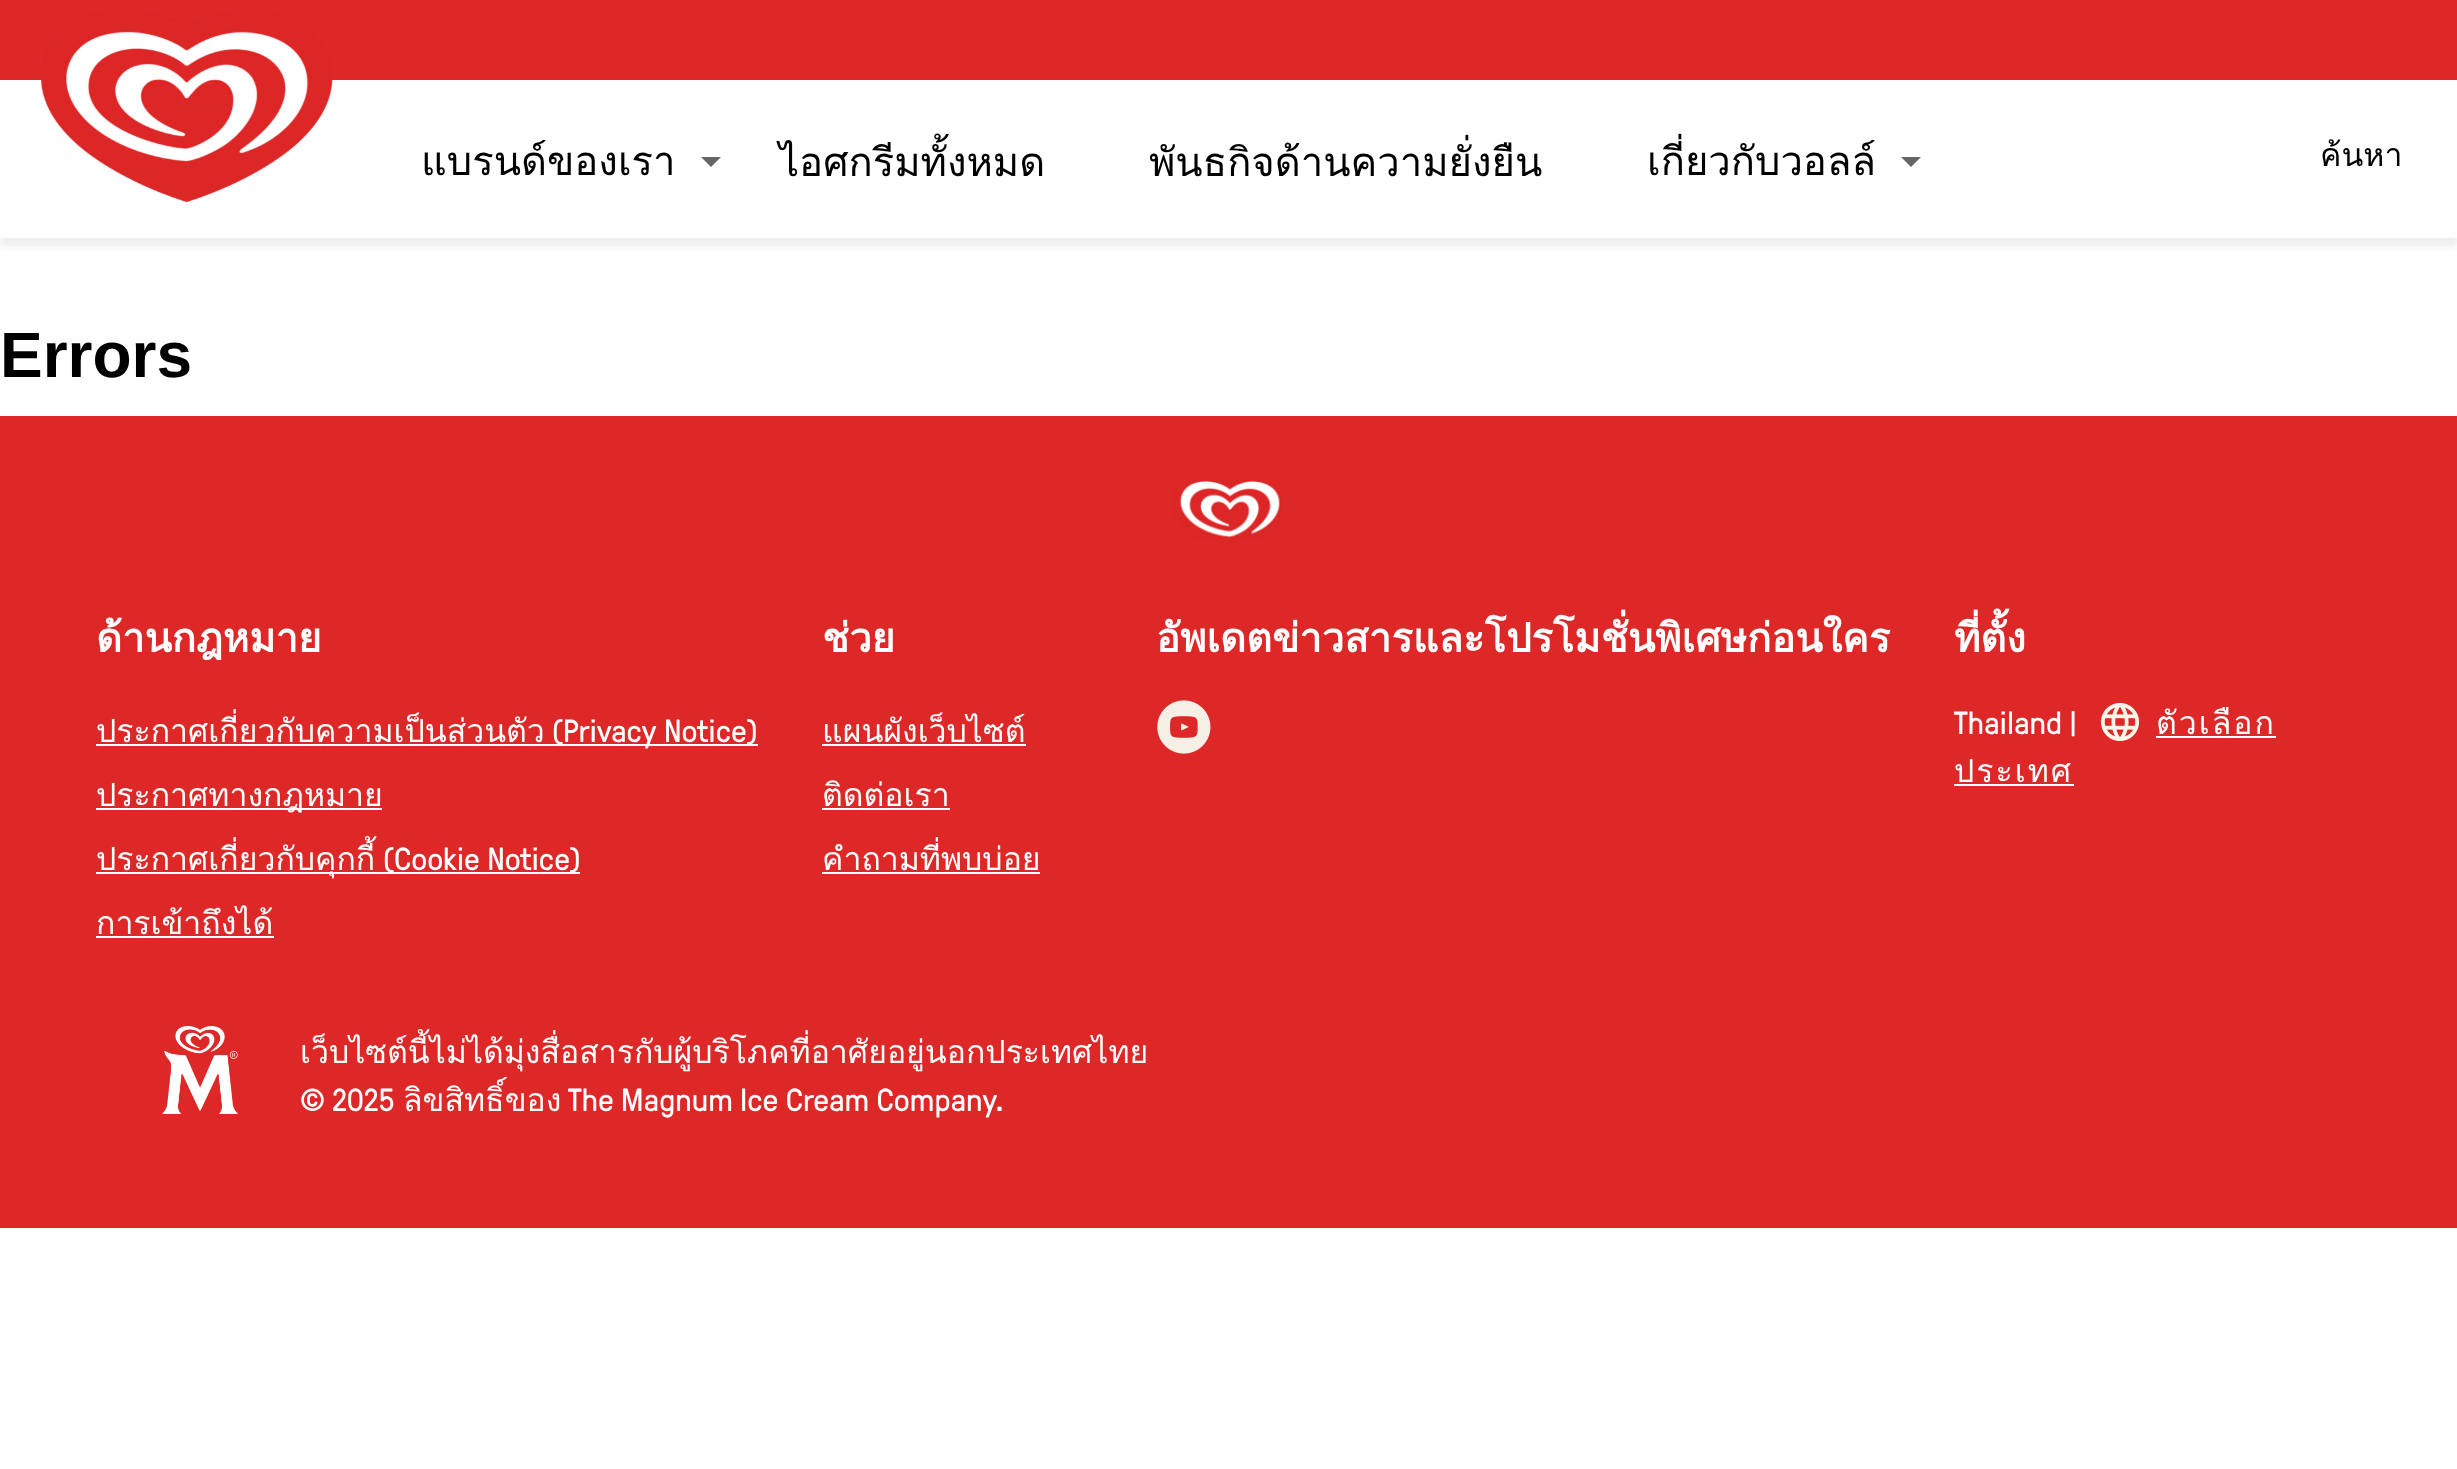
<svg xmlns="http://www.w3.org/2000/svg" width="2457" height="1469">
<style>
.a{font:40px Loma;fill:#000}
.b{font:32px Loma;fill:#000}
.c{font:bold 64px Liberation Sans;fill:#000}
.d{font:bold 40px Loma;fill:#fff}
.e{font:32px Loma;fill:#fff}
.f{font:32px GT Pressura;fill:#fff}
.g{font:32px Loma;letter-spacing:2px;fill:#fff}
</style>
<defs>
<clipPath id="clip1"><path d="M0 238h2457v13H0z"/></clipPath>
</defs>
<rect width="100%" height="100%" fill="#fff"/>
<g clip-path="url(#clip1)">
<path fill="#cccccc54" filter="blur(3px)" d="M0 8h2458v238H0z"/>
</g>
<path fill="#de2727" d="M0 0h2457v80H0z"/>
<image href="1.png" x="40" y="11" width="293" height="191"/>
<path fill="#666" d="M701 157l10 10l10-10z"/>
<path fill="#666" d="M1901 157l10 10l10-10z"/>
<path fill="#de2727" d="M0 416h2457v812H0z"/>
<image href="2.png" x="1172" y="480" width="110" height="60"/>
<path fill="#fff" d="M96 744h662v2H96z"/>
<path fill="#fff" d="M96 808h286v2H96z"/>
<path fill="#fff" d="M96 872h484v2H96z"/>
<path fill="#fff" d="M96 936h178v2H96z"/>
<path fill="#fff" d="M822 744h204v2H822z"/>
<path fill="#fff" d="M822 808h128v2H822z"/>
<path fill="#fff" d="M822 872h218v2H822z"/>
<image href="3.png" x="1157" y="700" width="54" height="54"/>
<image href="4.png" x="2100" y="703" width="40" height="38"/>
<path fill="#fff" d="M2156 736h120v2H2156z"/>
<path fill="#fff" d="M1954 784h120v2H1954z"/>
<image href="5.png" x="162" y="1026" width="76" height="88"/>
<text class="a" x="421" y="175">แบรนด์ของเรา</text>
<text class="a" x="779" y="176">ไอศกรีมทั้งหมด</text>
<text class="a" x="1149" y="176">พันธกิจด้านความยั่งยืน</text>
<text class="a" x="1647" y="175">เกี่ยวกับวอลล์</text>
<text class="b" x="2320" y="166">ค้นหา</text>
<text class="c" x="0" y="377">Errors</text>
<text class="d" x="96" y="652">ด้านกฎหมาย</text>
<text class="e" x="96" y="742">ประกาศเกี่ยวกับความเป็นส่วนตัว</text>
<text class="f" x="552" y="742">(Privacy Notice)</text>
<text class="e" x="96" y="806">ประกาศทางกฎหมาย</text>
<text class="e" x="96" y="870">ประกาศเกี่ยวกับคุกกี้</text>
<text class="f" x="383" y="870">(Cookie Notice)</text>
<text class="e" x="96" y="934">การเข้าถึงได้</text>
<text class="d" x="822" y="652">ช่วย</text>
<text class="e" x="822" y="742">แผนผังเว็บไซต์</text>
<text class="e" x="822" y="806">ติดต่อเรา</text>
<text class="e" x="822" y="870">คำถามที่พบบ่อย</text>
<text class="d" x="1156" y="652">อัพเดตข่าวสารและโปรโมชั่นพิเศษก่อนใคร</text>
<text class="d" x="1954" y="652">ที่ตั้ง</text>
<text class="g" x="2156" y="734">ตัวเลือก</text>
<text class="g" x="1954" y="782">ประเทศ</text>
<text class="f" x="1954" y="734">Thailand |</text>
<text class="e" x="300" y="1063">เว็บไซต์นี้ไม่ได้มุ่งสื่อสารกับผู้บริโภคที่อาศัยอยู่นอกประเทศไทย</text>
<text class="f" x="300" y="1111">© 2025</text>
<text class="e" x="403" y="1111">ลิขสิทธิ์ของ</text>
<text class="f" x="568" y="1111">The Magnum Ice Cream Company.</text>
</svg>
